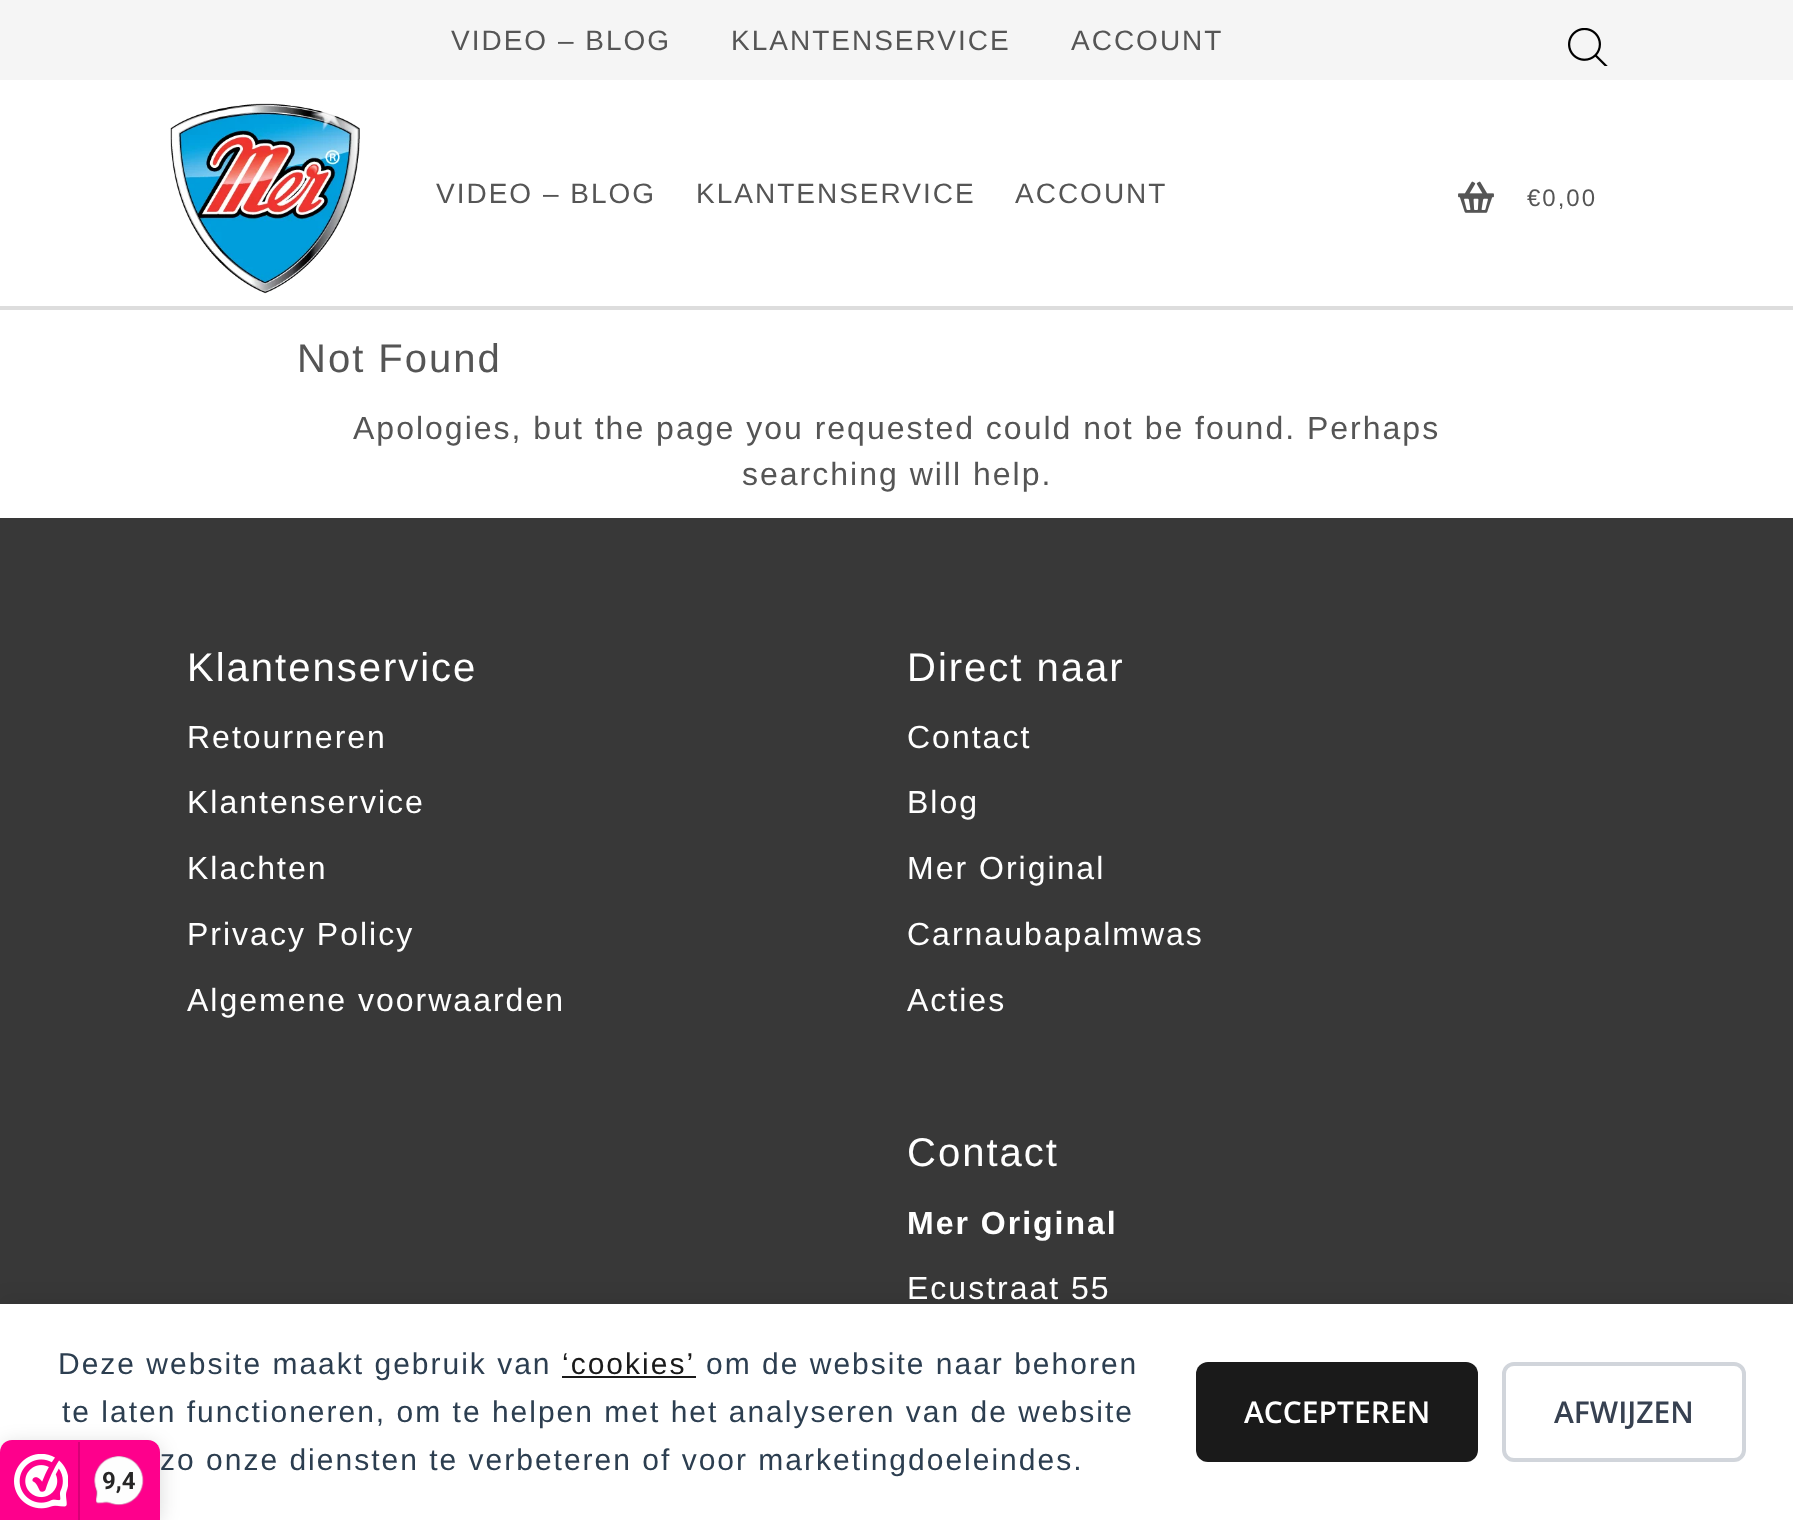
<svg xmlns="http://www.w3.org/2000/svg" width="1793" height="1520">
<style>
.a{font:28px Liberation Sans;letter-spacing:2px;fill:#555}
.b{font:24px Liberation Sans;letter-spacing:2px;fill:#555}
.c{font:40px Liberation Sans;letter-spacing:2px;fill:#555}
.d{font:32px Liberation Sans;letter-spacing:2px;fill:#555}
.e{font:40px Liberation Sans;letter-spacing:2px;fill:#fff}
.f{font:32px Liberation Sans;letter-spacing:2px;fill:#fff}
.g{font:bold 32px Liberation Sans;letter-spacing:2px;fill:#fff}
.h{font:30px Liberation Sans;letter-spacing:2px;fill:#2c3e50}
.i{font:30px Liberation Sans;letter-spacing:2px;fill:#1a1a1a}
.j{font:600 30px Open Sans;fill:#fff}
.k{font:600 30px Open Sans;fill:#374151}
.l{font:bold 24px Roboto;fill:#272626}
</style>
<rect width="100%" height="100%" fill="#fff"/>
<path fill="#f5f5f5" d="M0 0h1793v80H0z"/>
<image href="1.png" x="1568" y="28" width="40" height="38"/>
<path fill="#ddd" d="M0 306h1793v4H0z"/>
<image href="2.png" x="170" y="103" width="190" height="191"/>
<image href="3.png" x="1458" y="181" width="36" height="32"/>
<path fill="#383838" d="M0 518h1793v786H0z"/>
<path fill="#00000014" filter="blur(10px)" d="M0 1300h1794v216H0z"/>
<path fill="#fff" d="M0 1304h1793v216H0z"/>
<path fill="#1a1a1a" d="M562 1376h134v2H562z"/>
<rect fill="#1a1a1a" x="1196" y="1362" width="282" height="100" rx="12"/>
<rect fill="none" stroke="#d1d5db" stroke-width="4" x="1504" y="1364" width="240" height="96" rx="10"/>
<rect fill="#00000026" filter="blur(10px)" y="1444" width="160" height="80" rx="12"/>
<path fill="#fe008c" d="M12 1440h136c6.5 0 12 5.5 12 12v68h-160v-68c0-6.5 5.5-12 12-12z"/>
<image href="4.png" x="14" y="1454" width="54" height="55"/>
<path fill="#d80077" d="M78 1442h2v78H78z"/>
<image href="5.png" x="94" y="1456" width="50" height="50"/>
<text class="a" x="451" y="50">VIDEO – BLOG</text>
<text class="a" x="731" y="50">KLANTENSERVICE</text>
<text class="a" x="1071" y="50">ACCOUNT</text>
<text class="a" x="436" y="203">VIDEO – BLOG</text>
<text class="a" x="696" y="203">KLANTENSERVICE</text>
<text class="a" x="1015" y="203">ACCOUNT</text>
<text class="b" x="1527" y="206">€0,00</text>
<text class="c" x="297" y="372">Not Found</text>
<text class="d" x="353" y="439">Apologies, but the page you requested could not be found. Perhaps</text>
<text class="d" x="742" y="485">searching will help.</text>
<text class="e" x="187" y="681">Klantenservice</text>
<text class="f" x="187" y="748">Retourneren</text>
<text class="f" x="187" y="813">Klantenservice</text>
<text class="f" x="187" y="879">Klachten</text>
<text class="f" x="187" y="945">Privacy Policy</text>
<text class="f" x="187" y="1011">Algemene voorwaarden</text>
<text class="e" x="907" y="681">Direct naar</text>
<text class="f" x="907" y="748">Contact</text>
<text class="f" x="907" y="813">Blog</text>
<text class="f" x="907" y="879">Mer Original</text>
<text class="f" x="907" y="945">Carnaubapalmwas</text>
<text class="f" x="907" y="1011">Acties</text>
<text class="e" x="907" y="1166">Contact</text>
<text class="g" x="907" y="1234">Mer Original</text>
<text class="f" x="907" y="1299">Ecustraat 55</text>
<text class="h" x="58" y="1374">Deze website maakt gebruik van</text>
<text class="i" x="562" y="1374">‘cookies’</text>
<text class="h" x="706" y="1374">om de website naar behoren</text>
<text class="h" x="62" y="1422">te laten functioneren, om te helpen met het analyseren van de website</text>
<text class="h" x="160" y="1470">zo onze diensten te verbeteren of voor marketingdoeleindes.</text>
<text class="j" x="1244" y="1423">ACCEPTEREN</text>
<text class="k" x="1554" y="1423">AFWIJZEN</text>
<text class="l" x="102" y="1489">9,4</text>
</svg>
